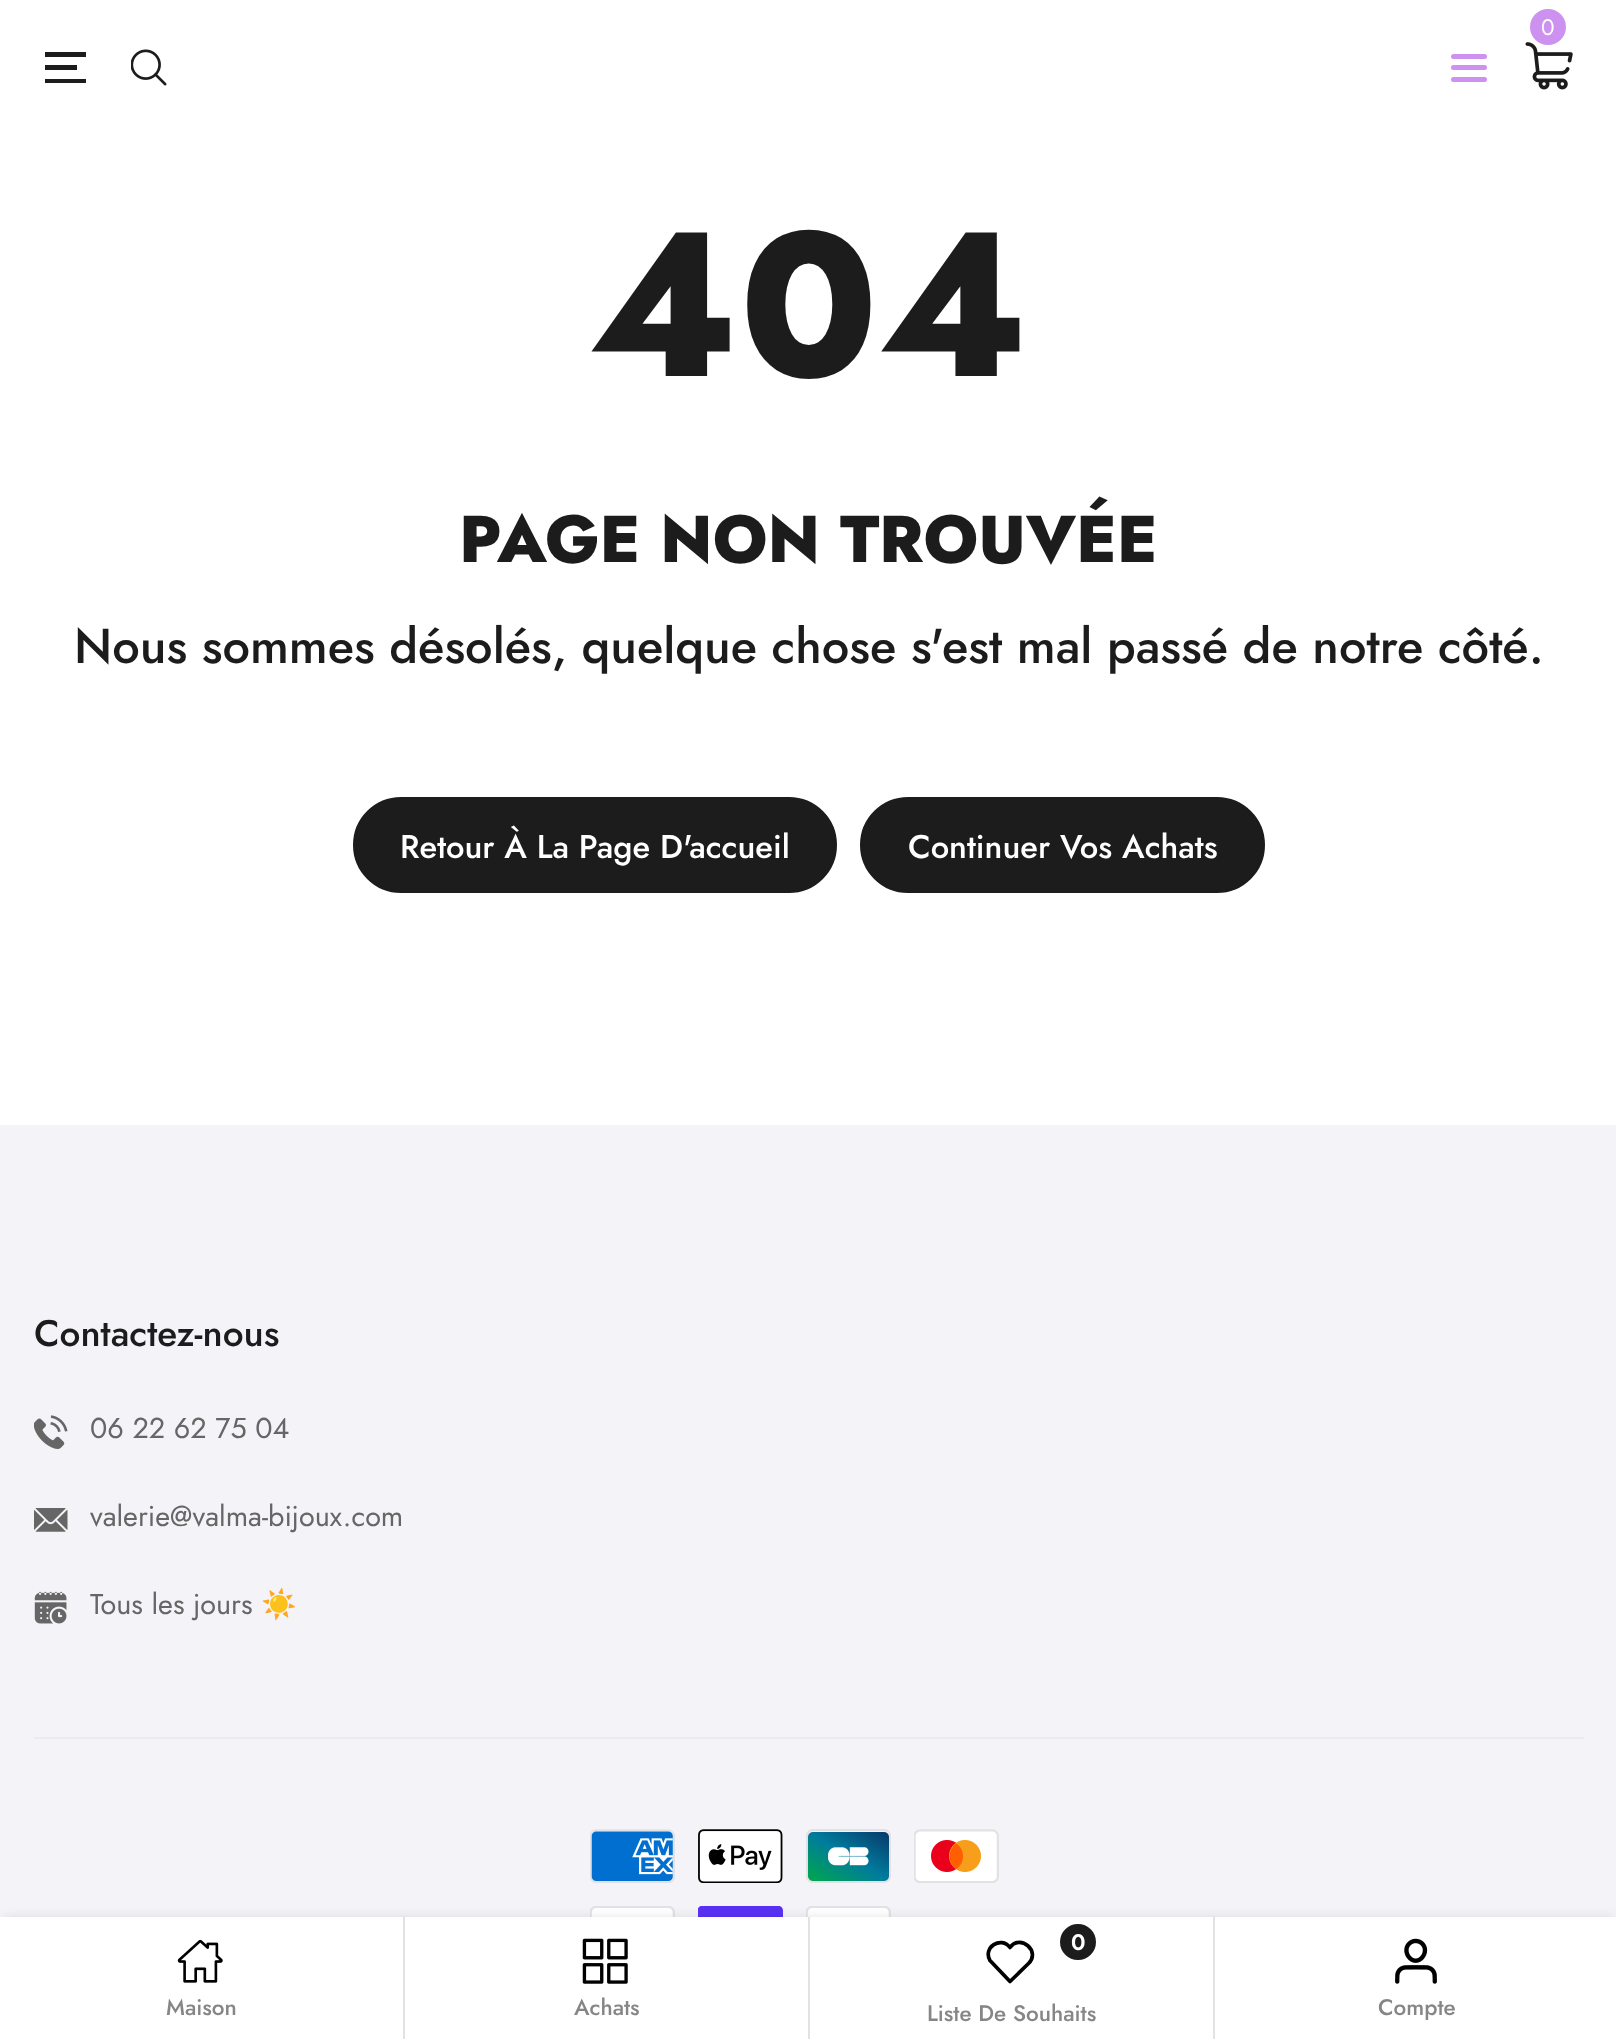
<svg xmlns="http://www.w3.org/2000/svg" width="1616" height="2039">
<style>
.a{font:22.5px Jost;fill:#fff}
.b{font:800 205px Jost;fill:#1c1c1c}
.c{font:800 66px Jost;fill:#1c1c1c}
.d{font:500 48.85px Jost;fill:#1c1c1c}
.e{font:500 32.75px Jost;fill:#fff}
.f{font:500 37px Jost;fill:#1c1c1c}
.g{font:28.75px Jost;fill:#666}
.h{font:28.75px Noto Color Emoji;fill:#666}
.i{font:500 22.5px Jost;fill:#868686}
.j{font:600 22.5px Jost;fill:#fff}
</style>
<rect width="100%" height="100%" fill="#fff"/>
<image href="1.png" x="1525" y="42" width="48" height="48"/>
<circle fill="#cd92ef" cx="1548" cy="27" r="18"/>
<rect fill="#cd92ef" x="1451" y="54" width="36" height="5" rx="2.5"/>
<rect fill="#cd92ef" x="1451" y="65" width="36" height="5" rx="2.5"/>
<rect fill="#cd92ef" x="1451" y="77" width="36" height="5" rx="2.5"/>
<path fill="#1c1c1c" d="M45 65h32v5H45z"/>
<path fill="#1c1c1c" d="M45 52h41v5H45z"/>
<path fill="#1c1c1c" d="M45 79h41v4H45z"/>
<image href="2.png" x="131" y="49" width="36" height="37"/>
<rect fill="#1c1c1c" stroke="#1c1c1c" stroke-width="2" x="354" y="798" width="482" height="94" rx="47"/>
<rect fill="#1c1c1c" stroke="#1c1c1c" stroke-width="2" x="861" y="798" width="403" height="94" rx="47"/>
<path fill="#f4f4f8" d="M0 1125h1616v792H0z"/>
<image href="3.png" x="34" y="1415" width="34" height="34"/>
<image href="4.png" x="34" y="1508" width="34" height="24"/>
<image href="5.png" x="34" y="1591" width="33" height="33"/>
<path fill="#ebebeb" d="M34 1737h1550v2H34z"/>
<image href="6.png" x="590" y="1829" width="85" height="54"/>
<image href="7.png" x="698" y="1829" width="85" height="54"/>
<image href="8.png" x="806" y="1829" width="85" height="54"/>
<image href="9.png" x="914" y="1829" width="85" height="54"/>
<image href="10.png" x="590" y="1906" width="85" height="11"/>
<image href="11.png" x="698" y="1906" width="85" height="11"/>
<image href="10.png" x="806" y="1906" width="85" height="11"/>
<path fill="#0000001a" filter="blur(5.5px)" d="M5 1917h1608v115H5z"/>
<path fill="#fff" d="M0 1917h1616v122H0z"/>
<path fill="#e2e2e2" d="M403 1917h2v122H403z"/>
<image href="12.png" x="177" y="1939" width="46" height="44"/>
<path fill="#e2e2e2" d="M808 1917h2v122H808z"/>
<image href="13.png" x="582" y="1938" width="46" height="46"/>
<path fill="#e2e2e2" d="M1213 1917h2v122H1213z"/>
<path fill="none" stroke="#000" stroke-width="3.7" stroke-linecap="round" stroke-linejoin="round" d="M1028.5 1963.5l-18.5 18l-20-21c-7.5-13 11-25 20-13c10.5-14 31 4 18.5 16"/>
<circle fill="#1c1c1c" stroke="#1c1c1c" stroke-width="2" cx="1078" cy="1942" r="17"/>
<image href="14.png" x="1395" y="1938" width="42" height="46"/>
<text class="a" x="1541" y="35">0</text>
<text class="b" x="589" y="376">404</text>
<text class="c" x="459" y="562">PAGE NON TROUVÉE</text>
<text class="d" x="74" y="663" word-spacing="-0.1">Nous sommes désolés, quelque chose s'est mal passé de notre côté.</text>
<text class="e" x="400" y="858">Retour À La Page D'accueil</text>
<text class="e" x="908" y="858">Continuer Vos Achats</text>
<text class="f" x="34" y="1346">Contactez-nous</text>
<text class="g" x="90" y="1438">06 22 62 75 04</text>
<text class="g" x="90" y="1526">valerie@valma-bijoux.com</text>
<text class="g" x="90" y="1614">Tous les jours</text>
<text class="h" x="261" y="1614">☀️</text>
<text class="i" x="166" y="2015">Maison</text>
<text class="i" x="574" y="2015">Achats</text>
<text class="j" x="1071" y="1950">0</text>
<text class="i" x="927" y="2021">Liste De Souhaits</text>
<text class="i" x="1378" y="2015">Compte</text>
</svg>
